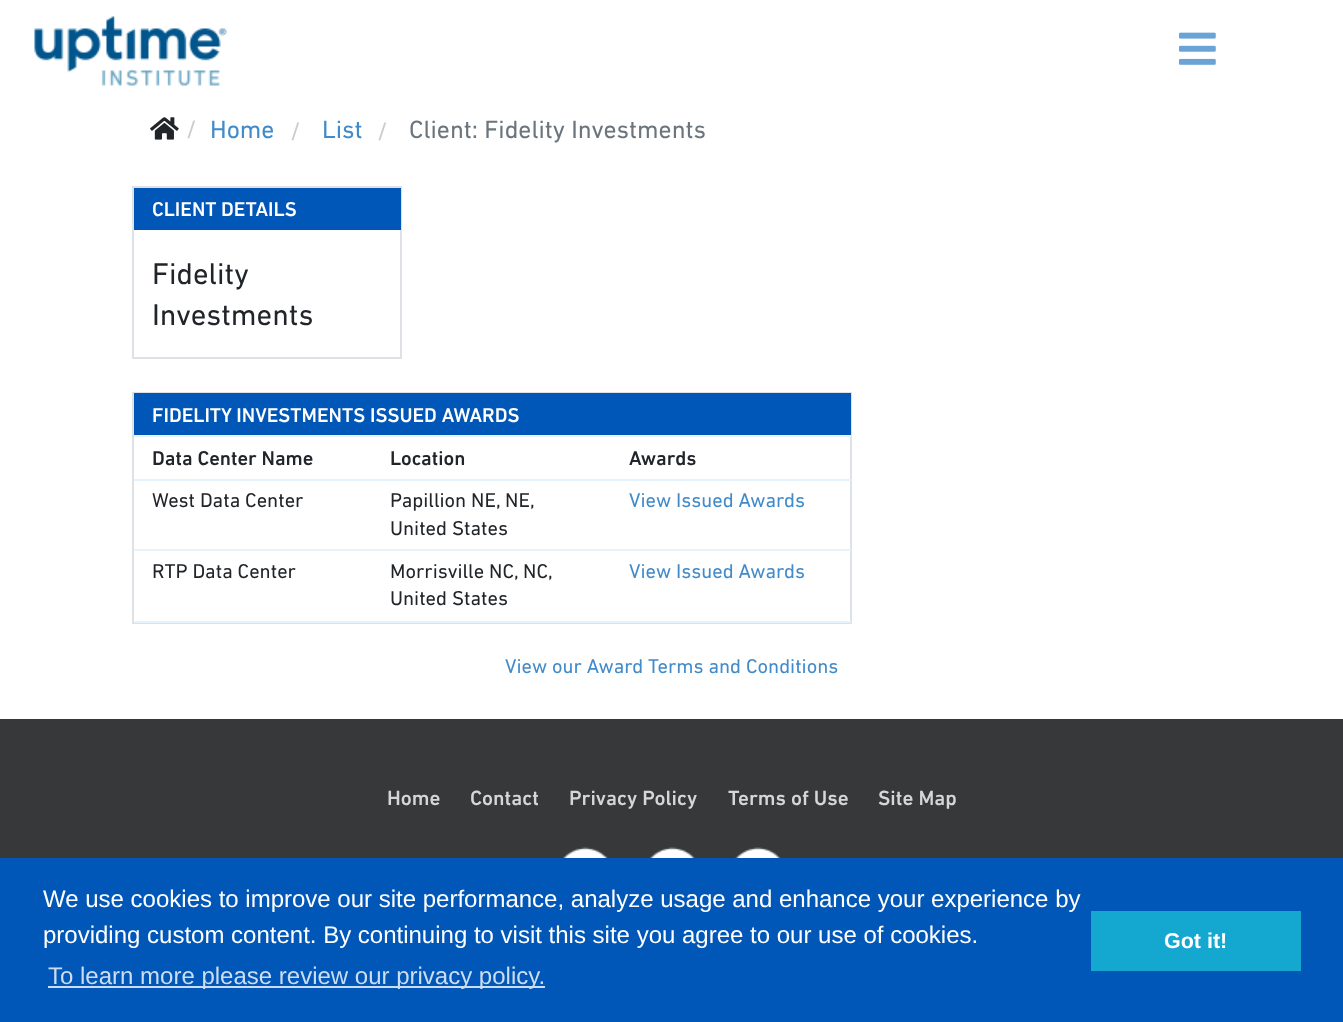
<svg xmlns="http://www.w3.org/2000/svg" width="1343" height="1022">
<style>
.a{font:25.5px DIN Next;fill:#ccc}
.b{font:25.5px DIN Next;fill:#428bca}
.c{font:25.5px DIN Next;fill:#6c757d}
.d{font:500 20.4px DIN Next;fill:#fff}
.e{font:30.5px DIN Next;fill:#212529}
.f{font:500 20.4px DIN Next;fill:#212529}
.g{font:20.4px DIN Next;fill:#212529}
.h{font:20.4px DIN Next;fill:#428bca}
.i{font:500 21px DIN Next;fill:#d6d6d6}
.j{font:24px Liberation Sans;fill:#fff}
.k{font:24px Liberation Sans;fill:#ccddf1}
.l{font:bold 21.5px Liberation Sans;fill:#fff}
</style>
<rect width="100%" height="100%" fill="#fff"/>
<image href="1.png" x="34" y="16" width="193" height="70"/>
<image href="2.png" x="1179" y="32" width="37" height="33"/>
<image href="3.png" x="150" y="117" width="29" height="23"/>
<path fill="none" stroke="#dee2e6" stroke-width="2" d="M133 187h268v171H133z"/>
<path fill="#0057b8" d="M134 188h267v42H134z"/>
<path fill="none" stroke="#dee2e6" stroke-width="2" d="M133 393h718v230H133z"/>
<path fill="#0057b8" d="M134 393h717v42H134z"/>
<path fill="#e5f3ff" d="M134 435h717v2H134z"/>
<path fill="#e5f3ff" d="M134 479h717v2H134z"/>
<path fill="#e5f3ff" d="M134 549h717v2H134z"/>
<path fill="#e5f3ff" d="M134 621h717v2H134z"/>
<path fill="#363839" d="M0 719h1343v139H0z"/>
<image href="4.png" x="563" y="847" width="45" height="11"/>
<image href="5.png" x="650" y="847" width="45" height="11"/>
<image href="6.png" x="735" y="847" width="46" height="11"/>
<path fill="#0057b8" d="M0 858h1343v164H0z"/>
<path fill="#ccddf1" d="M48 986h497v2H48z"/>
<path fill="#14a7d0" d="M1091 911h210v60H1091z"/>
<text class="a" x="186" y="138">/</text>
<text class="b" x="210" y="138">Home</text>
<text class="a" x="290" y="140">/</text>
<text class="b" x="322" y="138">List</text>
<text class="a" x="377" y="140">/</text>
<text class="c" x="409" y="138">Client: Fidelity Investments</text>
<text class="d" x="152" y="216">CLIENT DETAILS</text>
<text class="e" x="152" y="284">Fidelity</text>
<text class="e" x="152" y="325">Investments</text>
<text class="d" x="152" y="422">FIDELITY INVESTMENTS ISSUED AWARDS</text>
<text class="f" x="152" y="465">Data Center Name</text>
<text class="f" x="390" y="465">Location</text>
<text class="f" x="629" y="465">Awards</text>
<text class="g" x="152" y="507">West Data Center</text>
<text class="g" x="390" y="507">Papillion NE, NE,</text>
<text class="g" x="390" y="535">United States</text>
<text class="h" x="629" y="507">View Issued Awards</text>
<text class="g" x="152" y="578">RTP Data Center</text>
<text class="g" x="390" y="578">Morrisville NC, NC,</text>
<text class="g" x="390" y="605">United States</text>
<text class="h" x="629" y="578">View Issued Awards</text>
<text class="h" x="505" y="673">View our Award Terms and Conditions</text>
<text class="i" x="387" y="805">Home</text>
<text class="i" x="470" y="805">Contact</text>
<text class="i" x="569" y="805">Privacy Policy</text>
<text class="i" x="728" y="805">Terms of Use</text>
<text class="i" x="878" y="805">Site Map</text>
<text class="j" x="43" y="907">We use cookies to improve our site performance, analyze usage and enhance your experience by</text>
<text class="j" x="43" y="943">providing custom content. By continuing to visit this site you agree to our use of cookies.</text>
<text class="k" x="48" y="984">To learn more please review our privacy policy.</text>
<text class="l" x="1164" y="948">Got it!</text>
</svg>
